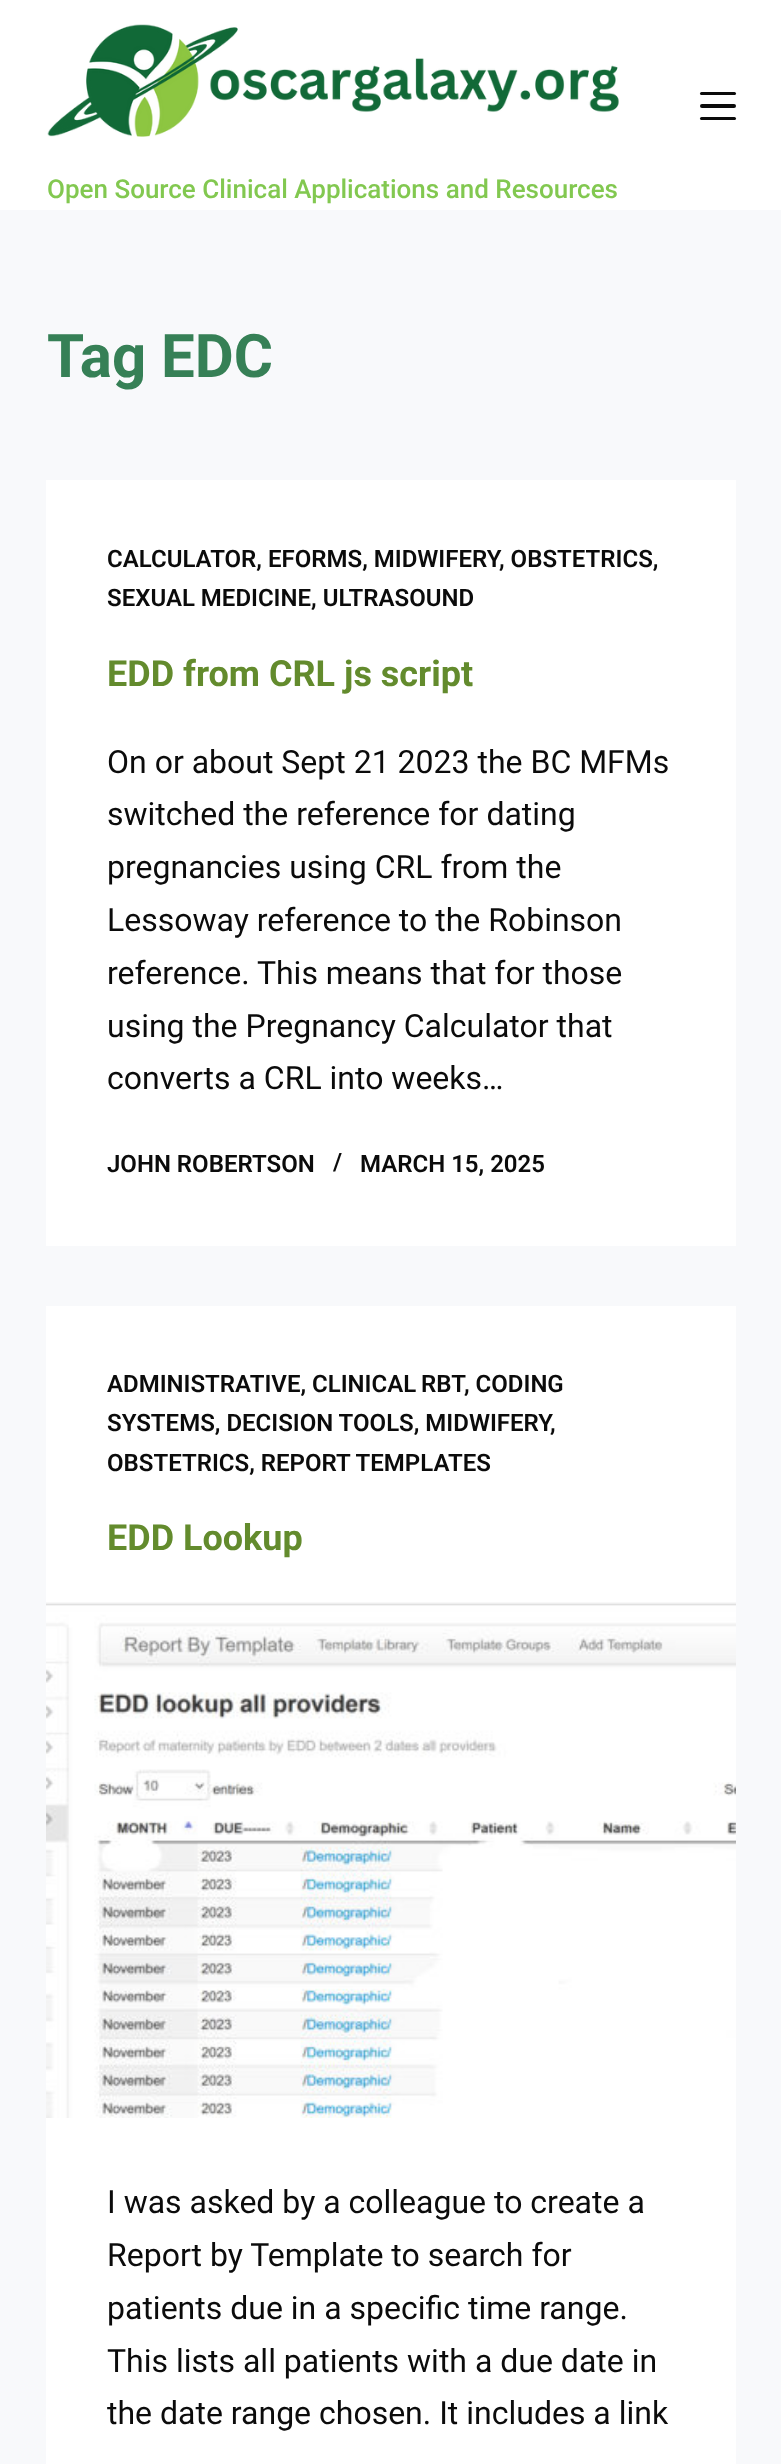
<svg xmlns="http://www.w3.org/2000/svg" width="781" height="2464">
<style>
.a{font:500 26px Roboto;fill:#82c850}
.b{font:bold 60px Roboto;fill:#368056}
.c{font:600 24px Roboto;fill:#0b0b0b}
.d{font:bold 36px Roboto;fill:#638b2d}
.e{font:32px Roboto;fill:#0b0b0b}
</style>
<rect width="100%" height="100%" fill="#f8f9fb"/>
<path fill="#fff" d="M0 0h781v210H0z"/>
<rect fill="#0b0b0b" x="700" y="92" width="36" height="3" rx="1.5"/>
<rect fill="#0b0b0b" x="700" y="104" width="36" height="4" rx="2"/>
<rect fill="#0b0b0b" x="700" y="117" width="36" height="3" rx="1.5"/>
<image href="1.png" x="47" y="24" width="572" height="113"/>
<path fill="#fff" d="M46 480h690v766H46z"/>
<path fill="#fff" d="M46 1306h690v1158H46z"/>
<image href="2.png" x="46" y="1602" width="690" height="516"/>
<text class="a" x="47" y="198">Open Source Clinical Applications and Resources</text>
<text class="b" x="47" y="377">Tag EDC</text>
<text class="c" x="107" y="567">CALCULATOR, EFORMS, MIDWIFERY</text>
<text class="c" x="499" y="567">, OBSTETRICS,</text>
<text class="c" x="107" y="606">SEXUAL MEDICINE, ULTRASOUND</text>
<text class="d" x="107" y="686">EDD from CRL js script</text>
<text class="e" x="107" y="773">On or about Sept 21 2023 the BC MFMs</text>
<text class="e" x="107" y="825">switched the reference for dating</text>
<text class="e" x="107" y="878">pregnancies using CRL from the</text>
<text class="e" x="107" y="931">Lessoway reference to the Robinson</text>
<text class="e" x="107" y="984">reference. This means that for those</text>
<text class="e" x="107" y="1037">using the Pregnancy Calculator that</text>
<text class="e" x="107" y="1089">converts a CRL into weeks…</text>
<text class="c" x="107" y="1172">JOHN ROBERTSON</text>
<text class="c" x="333" y="1170">/</text>
<text class="c" x="360" y="1172">MARCH 15, 2025</text>
<text class="c" x="107" y="1392">ADMINISTRATIVE,</text>
<text class="c" x="312" y="1392" word-spacing="-1">CLINICAL RBT</text>
<text class="c" x="464" y="1392">, CODING</text>
<text class="c" x="107" y="1431">SYSTEMS, DECISION TOOLS, MIDWIFERY</text>
<text class="c" x="550" y="1431">,</text>
<text class="c" x="107" y="1471">OBSTETRICS, REPORT TEMPLATES</text>
<text class="d" x="107" y="1550">EDD Lookup</text>
<text class="e" x="107" y="2213">I was asked by a colleague to create a</text>
<text class="e" x="107" y="2266">Report by Template to search for</text>
<text class="e" x="107" y="2319">patients due in a specific time range.</text>
<text class="e" x="107" y="2372">This lists all patients with a due date in</text>
<text class="e" x="107" y="2424">the date range chosen. It includes a link</text>
</svg>
